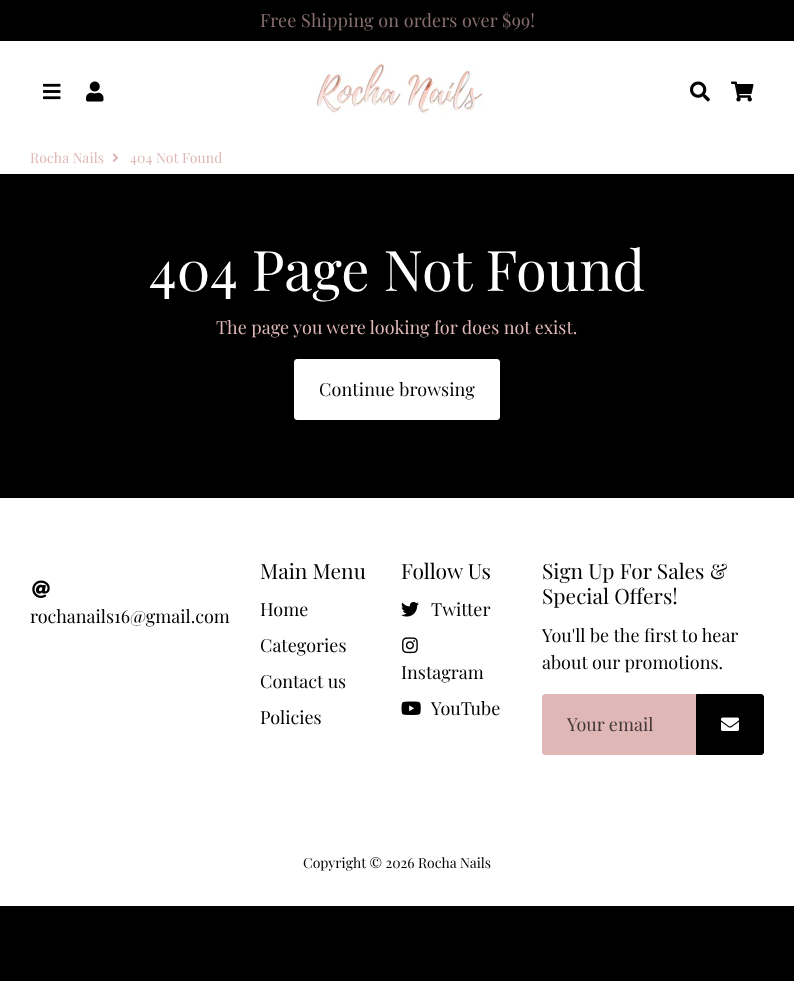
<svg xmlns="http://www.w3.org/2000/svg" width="794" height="981">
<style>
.a{font:18px Playfair Display;letter-spacing:0.1px;fill:#866e6e}
.b{font:14px Playfair Display;letter-spacing:0.1px;fill:#dfb7b7}
.c{font:56px Playfair Display;fill:#fff}
.d{font:18px Playfair Display;fill:#dfb7b7}
.e{font:18px Playfair Display;letter-spacing:0.1px;fill:#000}
.f{font:18px Playfair Display;fill:#000}
.g{font:21px Playfair Display;fill:#000}
.h{font:18px Playfair Display;fill:#433737}
.i{font:14px Playfair Display;fill:#000}
</style>
<rect width="100%" height="100%" fill="#000"/>
<path fill="#fff" d="M0 41h794v133H0z"/>
<image href="1.png" x="43" y="83" width="18" height="17"/>
<image href="2.png" x="86" y="81" width="18" height="21"/>
<image href="3.png" x="316" y="63" width="167" height="51"/>
<image href="4.png" x="690" y="81" width="20" height="21"/>
<image href="5.png" x="731" y="81" width="23" height="21"/>
<image href="6.png" x="112" y="153" width="7" height="9"/>
<rect fill="#fff" stroke="#fff" x="294.5" y="359.5" width="205" height="60" rx="2.5"/>
<path fill="#fff" d="M0 498h794v408H0z"/>
<image href="7.png" x="32" y="580" width="18" height="18"/>
<image href="8.png" x="401" y="601" width="18" height="16"/>
<image href="9.png" x="402" y="637" width="16" height="17"/>
<image href="10.png" x="401" y="701" width="20" height="14"/>
<path fill="#dfb7b7" stroke="#dfb7b7" d="M545 694.5h150.5v60h-150.5c-1.5 0-2.5-1-2.5-2.5v-55c0-1.5 1-2.5 2.5-2.5z"/>
<path fill="#000" stroke="#000" d="M696.5 694.5h64.5c1.5 0 2.5 1 2.5 2.5v55c0 1.5-1 2.5-2.5 2.5h-64.5z"/>
<image href="11.png" x="721" y="717" width="18" height="14"/>
<text class="a" x="260" y="27">Free Shipping on orders over $99!</text>
<text class="b" x="30" y="163">Rocha Nails</text>
<text class="b" x="130" y="163">404 Not Found</text>
<text class="c" x="149" y="291">404 Page Not Found</text>
<text class="d" x="216" y="334">The page you were looking for does not exist.</text>
<text class="e" x="319" y="396">Continue browsing</text>
<text class="f" x="30" y="623">rochanails16@gmail.com</text>
<text class="g" x="260" y="579">Main Menu</text>
<text class="f" x="260" y="616">Home</text>
<text class="f" x="260" y="652">Categories</text>
<text class="f" x="260" y="688">Contact us</text>
<text class="f" x="260" y="724">Policies</text>
<text class="g" x="401" y="579">Follow Us</text>
<text class="f" x="431" y="616">Twitter</text>
<text class="f" x="401" y="679">Instagram</text>
<text class="f" x="431" y="715">YouTube</text>
<text class="g" x="542" y="579">Sign Up For Sales &amp;</text>
<text class="g" x="542" y="604">Special Offers!</text>
<text class="f" x="542" y="642">You'll be the first to hear</text>
<text class="f" x="542" y="669">about our promotions.</text>
<text class="h" x="567" y="731">Your email</text>
<text class="i" x="303" y="868">Copyright © 2026 Rocha Nails</text>
</svg>
